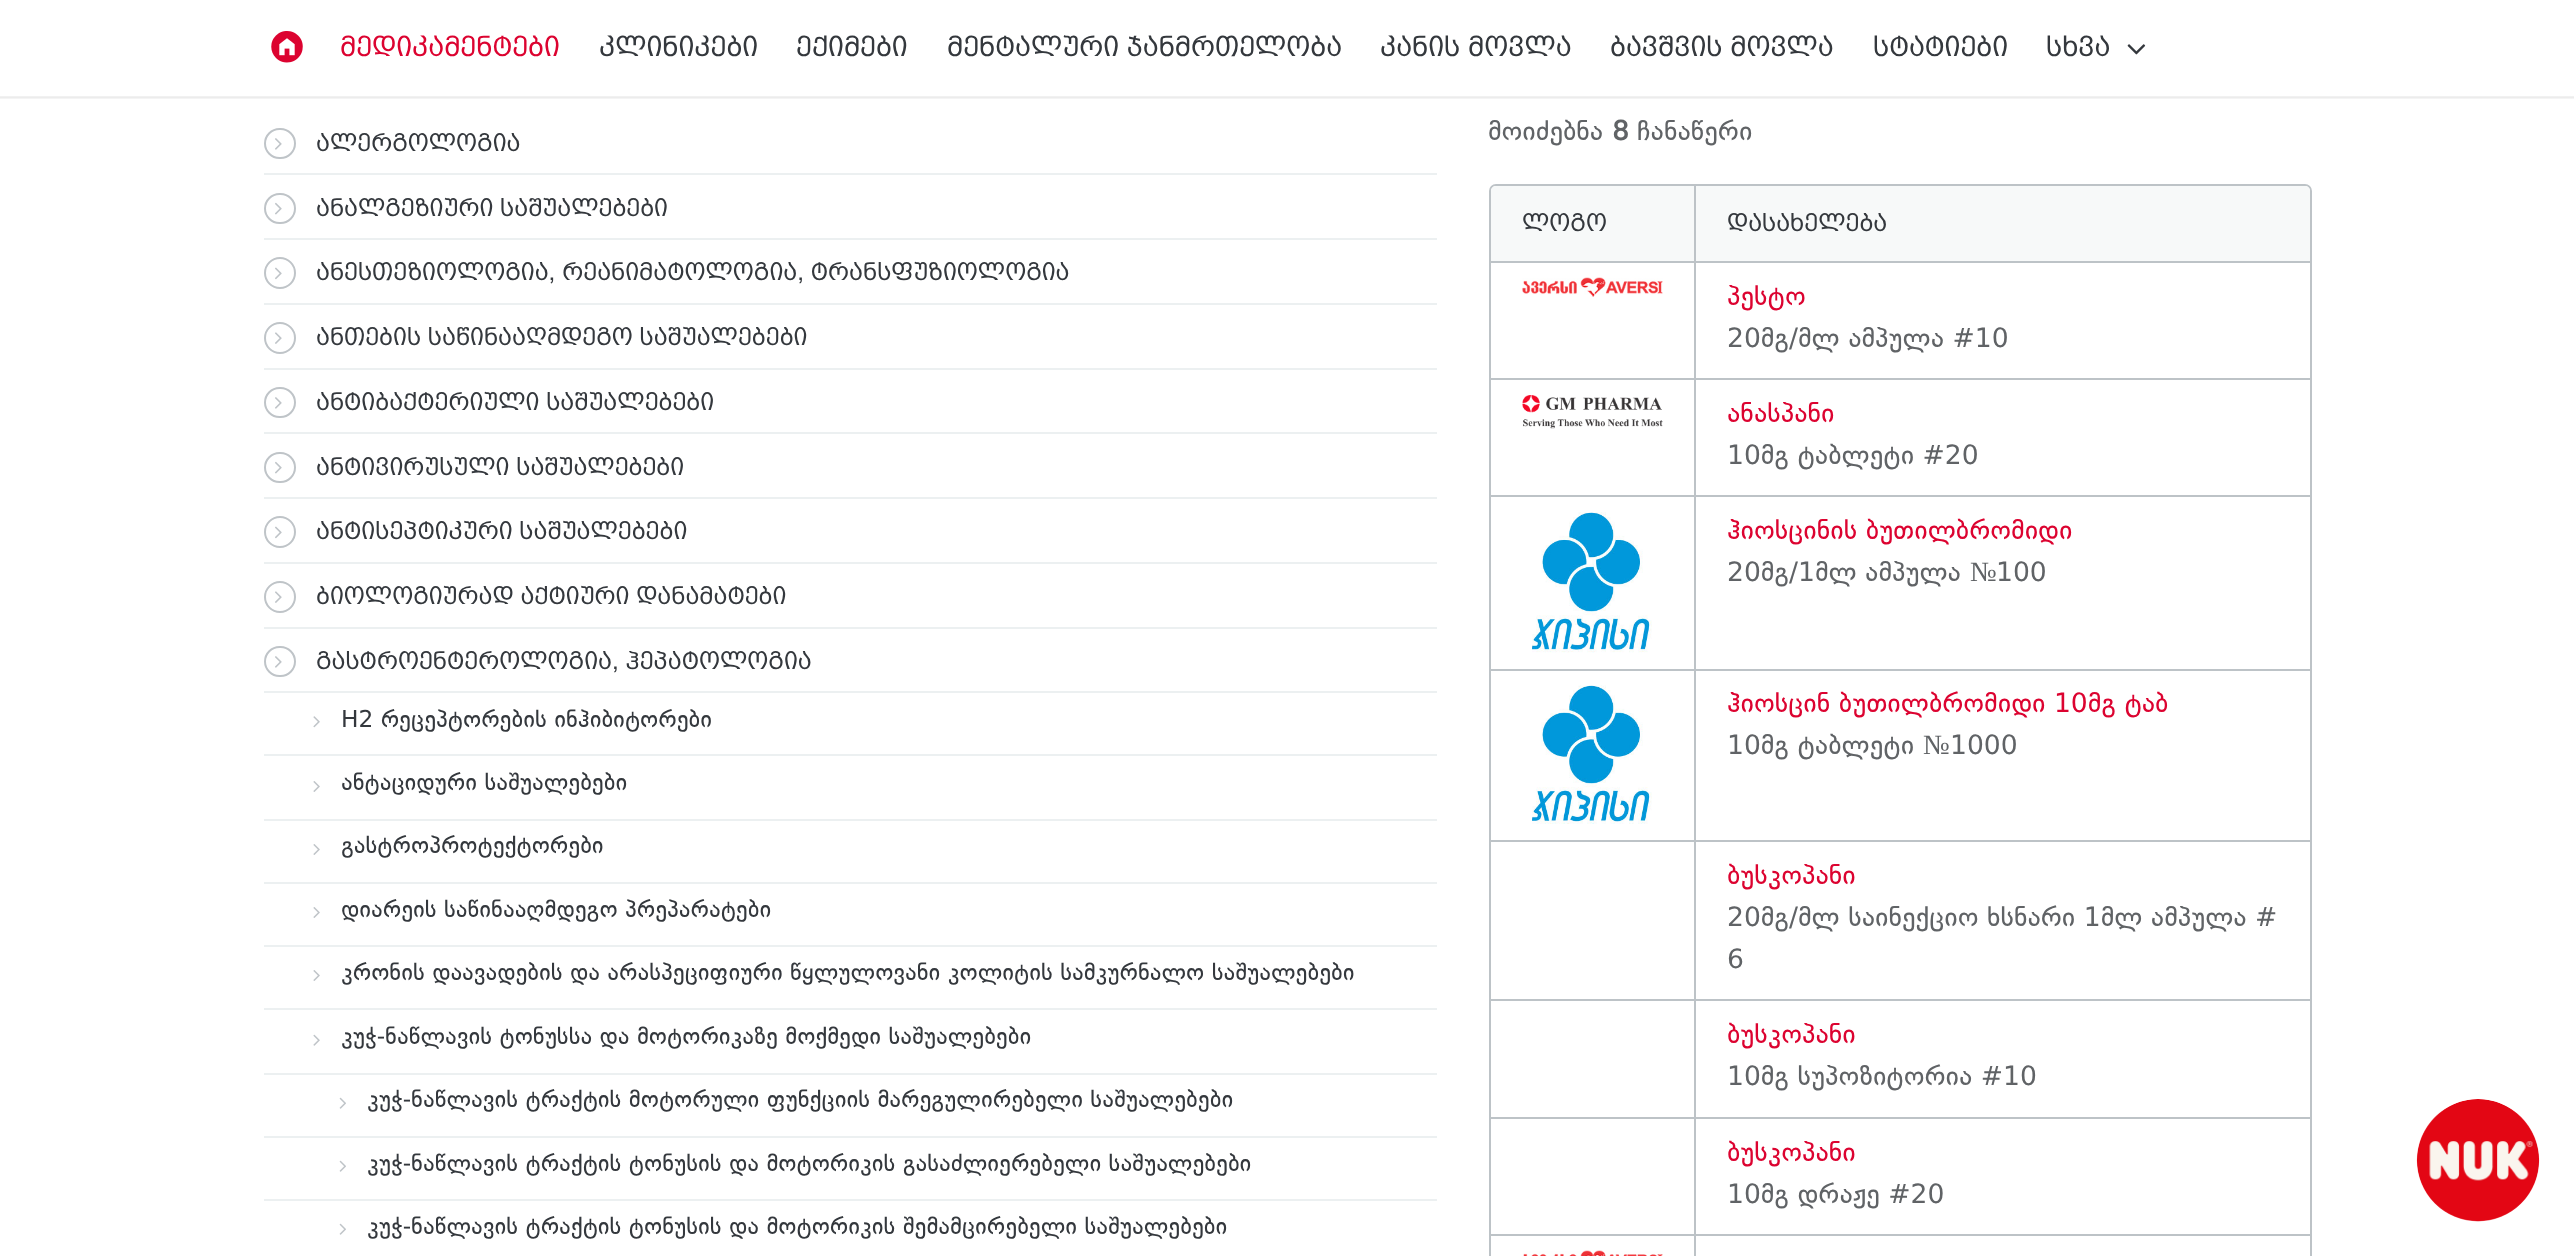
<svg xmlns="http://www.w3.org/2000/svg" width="2574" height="1256">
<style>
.a{font:28px 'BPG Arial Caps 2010';fill:#dc0330}
.b{font:28px 'BPG Arial Caps 2010';fill:#34383d}
.c{font:24.5px 'BPG Arial Caps 2010';fill:#34383d}
.d{font:24.5px DejaVu Sans;fill:#34383d}
.e{font:28px DejaVu Sans;fill:#606366}
.f{font:bold 28px DejaVu Sans;fill:#606366}
.g{font:28px DejaVu Sans;fill:#dc0330}
.h{font:28px Liberation Serif;fill:#606366}
</style>
<rect width="100%" height="100%" fill="#fff"/>
<image href="1.png" x="271" y="31" width="32" height="32"/>
<image href="2.png" x="2127" y="44" width="19" height="11"/>
<image href="3.png" x="0" y="96" width="2574" height="3"/>
<rect fill="none" stroke="#bfc4c8" stroke-width="2" x="265" y="129" width="30" height="29" rx="14.5"/>
<image href="4.png" x="275" y="138" width="7" height="12"/>
<path fill="#ecf0f1" d="M264 173h1173v2H264z"/>
<rect fill="none" stroke="#bfc4c8" stroke-width="2" x="265" y="194" width="30" height="29" rx="14.5"/>
<image href="5.png" x="275" y="202" width="7" height="13"/>
<path fill="#ecf0f1" d="M264 238h1173v2H264z"/>
<circle fill="none" stroke="#bfc4c8" stroke-width="2" cx="280" cy="273" r="15"/>
<image href="6.png" x="275" y="267" width="7" height="13"/>
<path fill="#ecf0f1" d="M264 303h1173v2H264z"/>
<circle fill="none" stroke="#bfc4c8" stroke-width="2" cx="280" cy="338" r="15"/>
<image href="7.png" x="275" y="332" width="7" height="12"/>
<path fill="#ecf0f1" d="M264 368h1173v2H264z"/>
<rect fill="none" stroke="#bfc4c8" stroke-width="2" x="265" y="388" width="30" height="29" rx="14.5"/>
<image href="4.png" x="275" y="397" width="7" height="12"/>
<path fill="#ecf0f1" d="M264 432h1173v2H264z"/>
<rect fill="none" stroke="#bfc4c8" stroke-width="2" x="265" y="453" width="30" height="29" rx="14.5"/>
<image href="5.png" x="275" y="461" width="7" height="13"/>
<path fill="#ecf0f1" d="M264 497h1173v2H264z"/>
<circle fill="none" stroke="#bfc4c8" stroke-width="2" cx="280" cy="532" r="15"/>
<image href="6.png" x="275" y="526" width="7" height="13"/>
<path fill="#ecf0f1" d="M264 562h1173v2H264z"/>
<circle fill="none" stroke="#bfc4c8" stroke-width="2" cx="280" cy="597" r="15"/>
<image href="7.png" x="275" y="591" width="7" height="12"/>
<path fill="#ecf0f1" d="M264 627h1173v2H264z"/>
<rect fill="none" stroke="#bfc4c8" stroke-width="2" x="265" y="647" width="30" height="29" rx="14.5"/>
<image href="4.png" x="275" y="656" width="7" height="12"/>
<path fill="#ecf0f1" d="M264 691h1173v2H264z"/>
<image href="8.png" x="313" y="716" width="7" height="12"/>
<path fill="#ecf0f1" d="M264 754h1173v2H264z"/>
<image href="9.png" x="313" y="781" width="7" height="11"/>
<path fill="#ecf0f1" d="M264 819h1173v2H264z"/>
<image href="9.png" x="313" y="844" width="7" height="11"/>
<path fill="#ecf0f1" d="M264 882h1173v2H264z"/>
<image href="9.png" x="313" y="907" width="7" height="11"/>
<path fill="#ecf0f1" d="M264 945h1173v2H264z"/>
<image href="9.png" x="313" y="970" width="7" height="11"/>
<path fill="#ecf0f1" d="M264 1008h1173v2H264z"/>
<image href="10.png" x="313" y="1034" width="7" height="12"/>
<path fill="#ecf0f1" d="M264 1073h1173v2H264z"/>
<image href="11.png" x="339" y="1097" width="7" height="12"/>
<path fill="#ecf0f1" d="M264 1136h1173v2H264z"/>
<image href="11.png" x="339" y="1160" width="7" height="12"/>
<path fill="#ecf0f1" d="M264 1199h1173v2H264z"/>
<image href="11.png" x="339" y="1223" width="7" height="12"/>
<rect fill="none" stroke="#bdc3c7" stroke-width="2" x="1490" y="185" width="821" height="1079" rx="6"/>
<path fill="#f7f9f9" d="M1496 186h809c3 0 5 2 5 5v72h-819v-72c0-3 2-5 5-5z"/>
<path fill="#bdc3c7" d="M1694 378h616v2H1694z"/>
<path fill="#bdc3c7" d="M1694 495h616v2H1694z"/>
<path fill="#bdc3c7" d="M1694 669h616v2H1694z"/>
<path fill="#bdc3c7" d="M1694 840h616v2H1694z"/>
<path fill="#bdc3c7" d="M1694 999h616v2H1694z"/>
<path fill="#bdc3c7" d="M1694 1117h616v2H1694z"/>
<path fill="#bdc3c7" d="M1694 1234h616v2H1694z"/>
<path fill="#bdc3c7" d="M1694 1234h2v22H1694z"/>
<path fill="#bdc3c7" d="M1491 1234h205v2H1491z"/>
<path fill="#bdc3c7" d="M1694 1117h2v119H1694z"/>
<path fill="#bdc3c7" d="M1491 1117h205v2H1491z"/>
<path fill="#bdc3c7" d="M1694 999h2v119H1694z"/>
<path fill="#bdc3c7" d="M1491 999h205v2H1491z"/>
<path fill="#bdc3c7" d="M1694 840h2v161H1694z"/>
<path fill="#bdc3c7" d="M1491 840h205v2H1491z"/>
<path fill="#bdc3c7" d="M1694 669h2v173H1694z"/>
<path fill="#bdc3c7" d="M1491 669h205v2H1491z"/>
<path fill="#bdc3c7" d="M1694 495h2v175H1694z"/>
<path fill="#bdc3c7" d="M1491 495h205v2H1491z"/>
<path fill="#bdc3c7" d="M1694 378h2v119H1694z"/>
<path fill="#bdc3c7" d="M1491 378h205v2H1491z"/>
<path fill="#bdc3c7" d="M1694 261h2v119H1694z"/>
<path fill="#bdc3c7" d="M1694 261h616v2H1694z"/>
<path fill="#bdc3c7" d="M1694 186h2v77H1694z"/>
<path fill="#bdc3c7" d="M1491 261h205v2H1491z"/>
<image href="12.png" x="1522" y="277" width="141" height="20"/>
<image href="13.png" x="1522" y="395" width="141" height="34"/>
<image href="14.png" x="1532" y="512" width="120" height="141"/>
<image href="15.png" x="1532" y="685" width="120" height="139"/>
<image href="16.png" x="1523" y="1250" width="140" height="6"/>
<image href="17.png" x="2416" y="1099" width="124" height="123"/>
<text class="a" x="340" y="56">მედიკამენტები</text>
<text class="b" x="599" y="56">კლინიკები</text>
<text class="b" x="796" y="56">ექიმები</text>
<text class="b" x="947" y="56">მენტალური ჯანმრთელობა</text>
<text class="b" x="1380" y="56">კანის მოვლა</text>
<text class="b" x="1610" y="56">ბავშვის მოვლა</text>
<text class="b" x="1873" y="56">სტატიები</text>
<text class="b" x="2046" y="56">სხვა</text>
<text class="c" x="316" y="151">ალერგოლოგია</text>
<text class="c" x="316" y="216">ანალგეზიური საშუალებები</text>
<text class="c" x="316" y="280">ანესთეზიოლოგია, რეანიმატოლოგია, ტრანსფუზიოლოგია</text>
<text class="c" x="316" y="345">ანთების საწინააღმდეგო საშუალებები</text>
<text class="c" x="316" y="410">ანტიბაქტერიული საშუალებები</text>
<text class="c" x="316" y="475">ანტივირუსული საშუალებები</text>
<text class="c" x="316" y="539">ანტისეპტიკური საშუალებები</text>
<text class="c" x="316" y="604">ბიოლოგიურად აქტიური დანამატები</text>
<text class="c" x="316" y="669">გასტროენტეროლოგია, ჰეპატოლოგია</text>
<text class="d" x="341" y="727">H2 რეცეპტორების ინჰიბიტორები</text>
<text class="d" x="341" y="790">ანტაციდური საშუალებები</text>
<text class="d" x="341" y="853">გასტროპროტექტორები</text>
<text class="d" x="341" y="917">დიარეის საწინააღმდეგო პრეპარატები</text>
<text class="d" x="341" y="980">კრონის დაავადების და არასპეციფიური წყლულოვანი კოლიტის სამკურნალო საშუალებები</text>
<text class="d" x="341" y="1044">კუჭ-ნაწლავის ტონუსსა და მოტორიკაზე მოქმედი საშუალებები</text>
<text class="d" x="367" y="1107">კუჭ-ნაწლავის ტრაქტის მოტორული ფუნქციის მარეგულირებელი საშუალებები</text>
<text class="d" x="367" y="1171">კუჭ-ნაწლავის ტრაქტის ტონუსის და მოტორიკის გასაძლიერებელი საშუალებები</text>
<text class="d" x="367" y="1234">კუჭ-ნაწლავის ტრაქტის ტონუსის და მოტორიკის შემამცირებელი საშუალებები</text>
<text class="e" x="1488" y="140">მოიძებნა</text>
<text class="f" x="1612" y="140">8</text>
<text class="e" x="1637" y="140">ჩანაწერი</text>
<text class="c" x="1522" y="231">ლოგო</text>
<text class="c" x="1727" y="231">დასახელება</text>
<text class="g" x="1727" y="305">პესტო</text>
<text class="e" x="1727" y="347">20მგ/მლ ამპულა #10</text>
<text class="g" x="1727" y="422">ანასპანი</text>
<text class="e" x="1727" y="464">10მგ ტაბლეტი #20</text>
<text class="g" x="1727" y="539">ჰიოსცინის ბუთილბრომიდი</text>
<text class="e" x="1727" y="581">20მგ/1მლ ამპულა</text>
<text class="h" x="1970" y="581">№</text>
<text class="e" x="1996" y="581">100</text>
<text class="g" x="1727" y="712">ჰიოსცინ ბუთილბრომიდი 10მგ ტაბ</text>
<text class="e" x="1727" y="754">10მგ ტაბლეტი</text>
<text class="h" x="1923" y="754">№</text>
<text class="e" x="1950" y="754">1000</text>
<text class="g" x="1727" y="884">ბუსკოპანი</text>
<text class="e" x="1727" y="926">20მგ/მლ საინექციო ხსნარი 1მლ ამპულა #</text>
<text class="e" x="1727" y="968">6</text>
<text class="g" x="1727" y="1043">ბუსკოპანი</text>
<text class="e" x="1727" y="1085">10მგ სუპოზიტორია #10</text>
<text class="g" x="1727" y="1161">ბუსკოპანი</text>
<text class="e" x="1727" y="1203">10მგ დრაჟე #20</text>
</svg>
